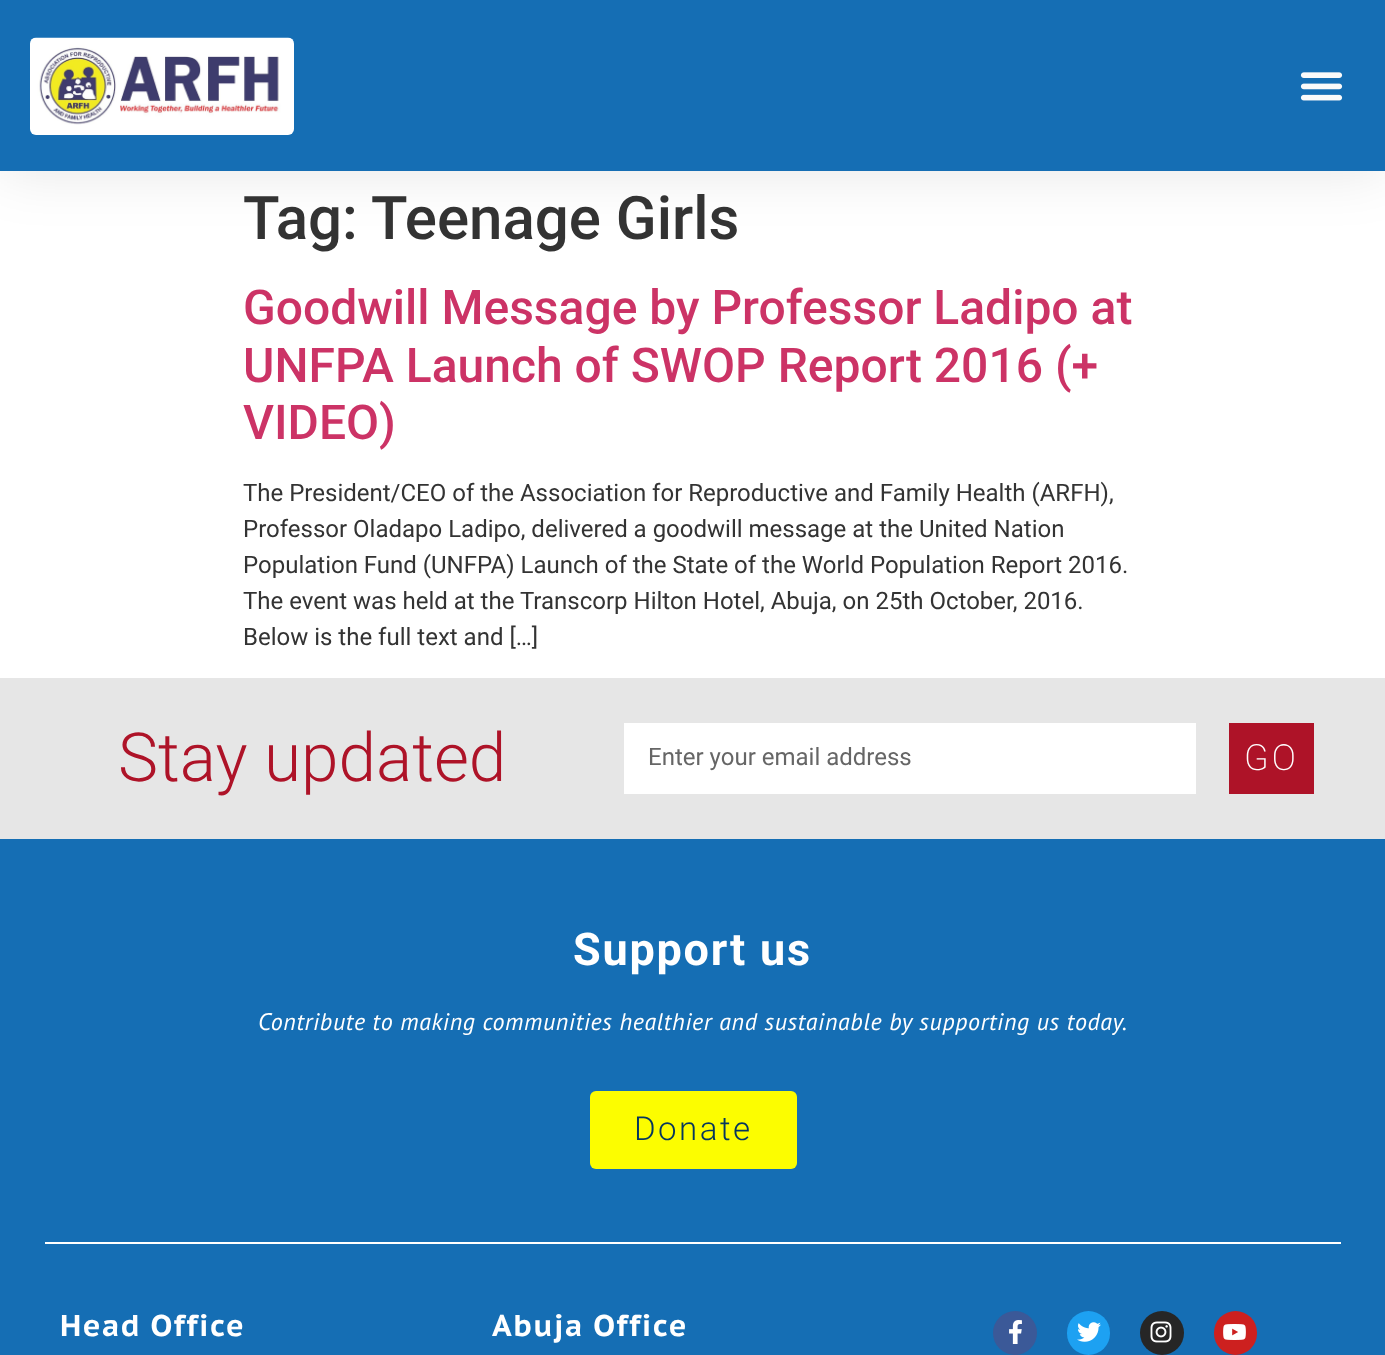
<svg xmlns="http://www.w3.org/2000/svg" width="1385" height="1355">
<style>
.a{font:500 60px Roboto;fill:#333}
.b{font:500 48px Roboto;fill:#c36}
.c{font:24px Roboto;fill:#333}
.d{font:300 67.5px Roboto;fill:#ae1328}
.e{font:24px Roboto;fill:#666}
.f{font:200 36px Roboto;letter-spacing:3px;fill:#fff}
.g{font:bold 45px Roboto;letter-spacing:1.75px;fill:#fff}
.h{font:italic 24px PT Sans;letter-spacing:0.6px;fill:#fff}
.i{font:300 33px Roboto;letter-spacing:2.5px;fill:#05365e}
.j{font:bold 30px PT Sans Caption;letter-spacing:1.5px;fill:#fff}
</style>
<rect width="100%" height="100%" fill="#fff"/>
<path fill="#0000001a" filter="blur(28.5px)" d="M0 0h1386v171H0z"/>
<path fill="#156eb4" d="M0 0h1385v171H0z"/>
<image href="1.png" x="30" y="37" width="264" height="98"/>
<image href="2.png" x="1300" y="72" width="43" height="29"/>
<path fill="#e6e6e6" d="M0 678h1385v161H0z"/>
<path fill="#fff" d="M624 723h572v71H624z"/>
<path fill="#ae1328" d="M1229 723h85v71H1229z"/>
<path fill="#156eb4" d="M0 839h1385v516H0z"/>
<rect fill="#fcfd00" x="590" y="1091" width="207" height="78" rx="6"/>
<path fill="#fff" d="M45 1242h1296v2H45z"/>
<circle fill="#3b5998" cx="1015" cy="1333" r="22"/>
<image href="3.png" x="1009" y="1320" width="13" height="24"/>
<rect fill="#1da1f2" x="1067" y="1311" width="43" height="44" rx="21.5"/>
<image href="4.png" x="1077" y="1322" width="24" height="20"/>
<circle fill="#262626" cx="1162" cy="1333" r="22"/>
<image href="5.png" x="1150" y="1321" width="22" height="22"/>
<rect fill="#cd201f" x="1214" y="1311" width="43" height="44" rx="21.5"/>
<image href="6.png" x="1223" y="1324" width="23" height="16"/>
<text class="a" x="243" y="239">Tag:</text>
<text class="a" x="371" y="239">Teenage Girls</text>
<text class="b" x="243" y="324">Goodwill Message by Professor Ladipo at</text>
<text class="b" x="243" y="382">UNFPA Launch of SWOP Report 2016 (+</text>
<text class="b" x="243" y="439">VIDEO)</text>
<text class="c" x="243" y="501">The President/CEO of the Association for Reproductive and Family Health (ARFH),</text>
<text class="c" x="243" y="537">Professor Oladapo Ladipo, delivered a goodwill message at the United Nation</text>
<text class="c" x="243" y="573">Population Fund (UNFPA) Launch of the State of the World Population Report 2016.</text>
<text class="c" x="243" y="609">The event was held at the Transcorp Hilton Hotel, Abuja, on 25th October, 2016.</text>
<text class="c" x="243" y="645">Below is the full text and […]</text>
<text class="d" x="118" y="781">Stay updated</text>
<text class="e" x="648" y="765">Enter your email address</text>
<text class="f" x="1244" y="770">GO</text>
<text class="g" x="573" y="965">Support us</text>
<text class="h" x="258" y="1030">Contribute to making communities healthier and sustainable by supporting us today.</text>
<text class="i" x="634" y="1140">Donate</text>
<text class="j" x="60" y="1336">Head Office</text>
<text class="j" x="492" y="1336">Abuja Office</text>
</svg>
